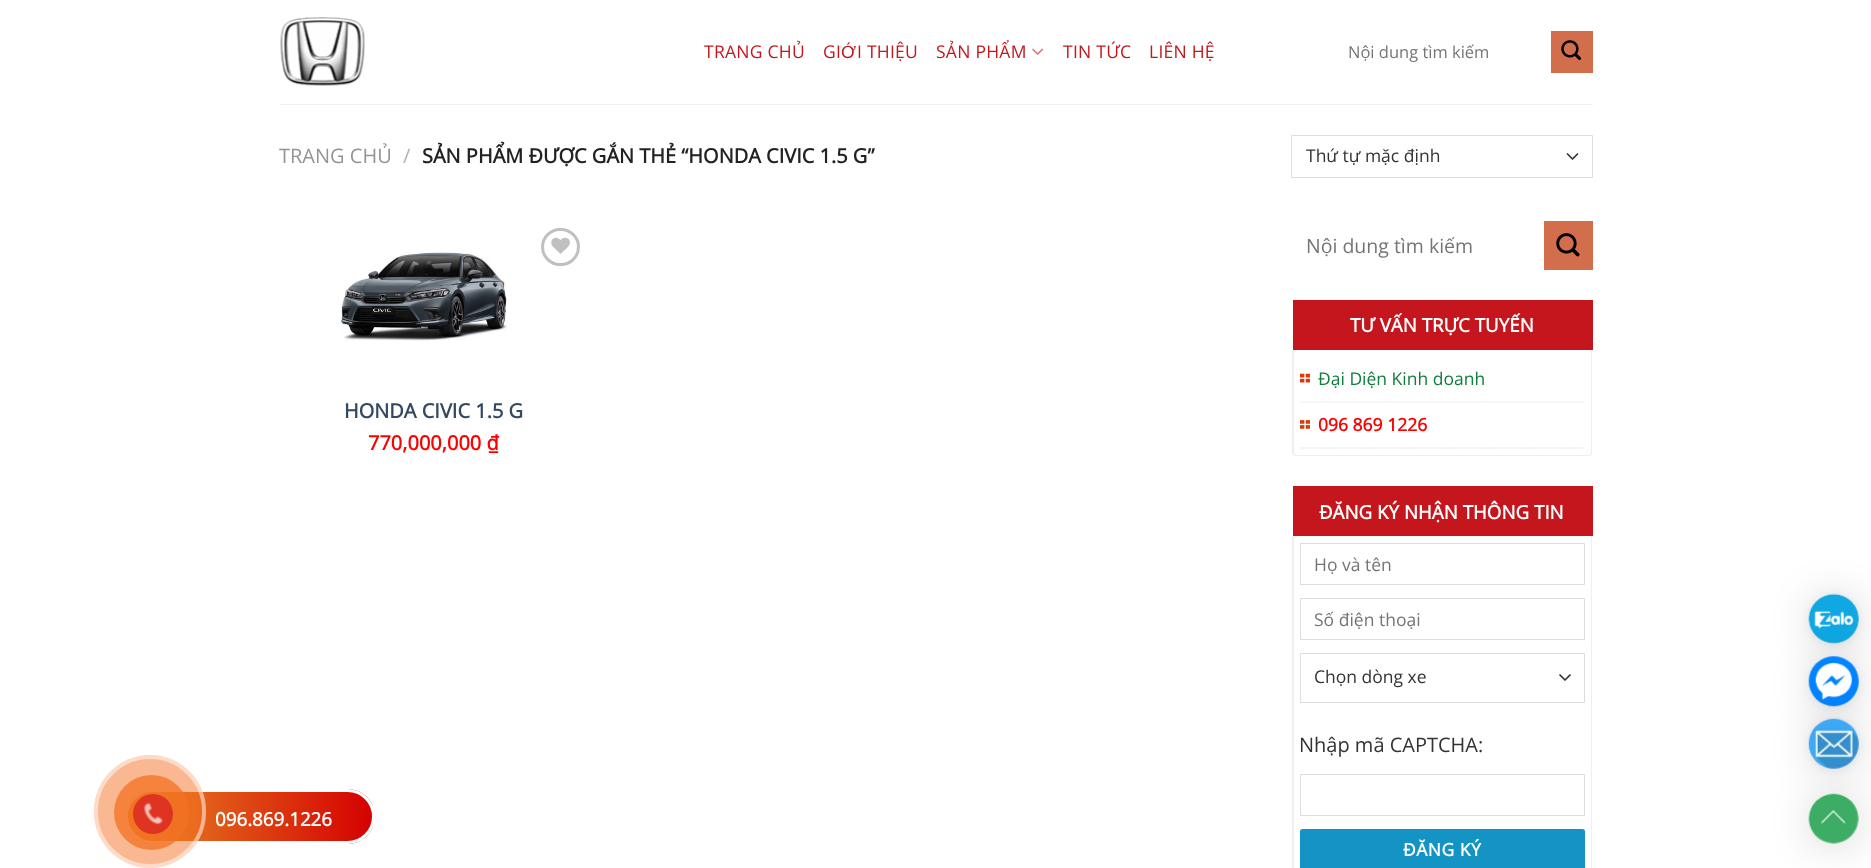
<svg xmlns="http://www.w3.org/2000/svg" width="1871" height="868">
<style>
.a{font:17.5px Open Sans;letter-spacing:0.25px;fill:#c4161c}
.b{font:17.5px Liberation Sans;letter-spacing:0.25px;fill:#c4161c}
.c{font:16.5px Open Sans;fill:#757575}
.d{font:20px Open Sans;fill:#949494}
.e{font:20px Open Sans;fill:#b2b2b2}
.f{font:bold 20px Open Sans;fill:#222}
.g{font:17.5px Open Sans;fill:#333}
.h{font:bold 18.75px Open Sans;fill:#fff}
.i{font:bold 20px Open Sans;fill:#334862}
.j{font:bold 20px Open Sans;fill:#f00}
.k{font:19.5px Open Sans;fill:#757575}
.l{font:17.5px Open Sans;fill:#0f7e3c}
.m{font:bold 17.5px Open Sans;fill:#f00}
.n{font:17.5px Open Sans;fill:#757575}
.o{font:20px Open Sans;fill:#333}
.p{font:bold 17.5px Open Sans;letter-spacing:0.5px;fill:#fff}
</style>
<defs>
<clipPath id="clip1"><rect x="125" y="789" width="250" height="55" rx="27.5"/></clipPath>
<linearGradient id="g1" gradientUnits="userSpaceOnUse" x1="128" y1="816" x2="373" y2="816"><stop offset="0" stop-color="#e88a25"/><stop offset="1" stop-color="#d40000"/></linearGradient>
<clipPath id="clip2"><path d="M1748 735h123v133h-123zm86 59c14 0 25 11 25 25c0 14-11 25-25 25c-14 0-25-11-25-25c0-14 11-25 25-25z" clip-rule="evenodd"/></clipPath>
</defs>
<rect width="100%" height="100%" fill="#fff"/>
<image href="1.png" x="280" y="17" width="85" height="69"/>
<image href="2.png" x="1032" y="48" width="12" height="7"/>
<path fill="#d26e4b" d="M1551 31h42v42H1551z"/>
<image href="3.png" x="1561" y="40" width="20" height="20"/>
<path fill="#f1f1f1" d="M280 104h1313v1H280z"/>
<path fill="none" stroke="#333" stroke-width="1.7" stroke-linecap="round" stroke-linejoin="round" d="M1567.5 154l5 5l5-5"/>
<path fill="none" stroke="#ddd" d="M1291.5 135.5h301v42H1291.5z"/>
<rect fill="#00000029" filter="blur(20px)" x="1809" y="596" width="50" height="50" rx="25"/>
<rect fill="#0000000f" filter="blur(4px)" x="1809" y="595" width="50" height="50" rx="25"/>
<image href="4.png" x="1808" y="593" width="51" height="51"/>
<rect fill="#00000029" filter="blur(20px)" x="1809" y="659" width="50" height="50" rx="25"/>
<rect fill="#0000000f" filter="blur(4px)" x="1809" y="658" width="50" height="50" rx="25"/>
<image href="5.png" x="1808" y="656" width="51" height="51"/>
<rect fill="#00000029" filter="blur(20px)" x="1809" y="721" width="50" height="50" rx="25"/>
<rect fill="#0000000f" filter="blur(4px)" x="1809" y="720" width="50" height="50" rx="25"/>
<image href="6.png" x="1808" y="718" width="51" height="51"/>
<g clip-path="url(#clip1)">
<path fill="url(#g1)" d="M128 789h245v55H128z"/>
</g>
<rect fill="none" stroke="#fff" stroke-width="3" x="126.5" y="790.5" width="247" height="52" rx="26"/>
<rect fill="#f3712380" x="94" y="755" width="112" height="113" rx="56"/>
<rect fill="none" stroke="#ffffff80" stroke-width="4" x="96" y="757" width="108" height="109" rx="54"/>
<circle fill="#f37123bf" cx="151.5" cy="812.5" r="37.5"/>
<circle fill="#d71921b3" cx="153" cy="814" r="20"/>
<image href="7.png" x="143" y="802" width="20" height="23"/>
<g clip-path="url(#clip2)">
<rect fill="#00000029" filter="blur(20px)" x="1809" y="796" width="50" height="50" rx="25"/>
</g>
<image href="8.png" x="1808" y="793" width="51" height="51"/>
<rect fill="none" stroke="#c0c0c0" stroke-width="3" x="542.5" y="229.5" width="36" height="35" rx="17.5"/>
<image href="9.png" x="551" y="237" width="19" height="17"/>
<image href="10.png" x="341" y="252" width="167" height="89"/>
<path fill="#d26e4b" d="M1544 221h49v49H1544z"/>
<image href="11.png" x="1556" y="233" width="24" height="24"/>
<path fill="#c4161c" d="M1293 300h300v50H1293z"/>
<path fill="#efefef" fill-rule="evenodd" d="M1292 350h300v102c0 3-1 4-3 4h-293c-2 0-4-1-4-4zm2 0h297v102c0 2-1 3-2 3h-293c-1 0-2-1-2-3z"/>
<image href="12.png" x="1300" y="373" width="10" height="10"/>
<path fill="none" stroke="#ddd" stroke-width="1.2" stroke-dasharray="1.25 1.25" d="M1300 402h285"/>
<image href="13.png" x="1300" y="419" width="10" height="10"/>
<path fill="none" stroke="#ddd" stroke-width="1.2" stroke-dasharray="1.25 1.25" d="M1300 448h285"/>
<path fill="#c4161c" d="M1293 486h300v50H1293z"/>
<path fill="#efefef" fill-rule="evenodd" d="M1292 536h300v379c0 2-1 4-3 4h-293c-2 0-4-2-4-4zm2 0h297v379c0 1-1 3-2 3h-293c-1 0-2-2-2-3z"/>
<path fill="none" stroke="#ddd" d="M1300.5 543.5h284v41H1300.5z"/>
<path fill="none" stroke="#ddd" d="M1300.5 598.5h284v41H1300.5z"/>
<path fill="none" stroke="#333" stroke-width="1.7" stroke-linecap="round" stroke-linejoin="round" d="M1560 675l5 5l5-5"/>
<path fill="none" stroke="#ddd" d="M1300.5 653.5h284v49H1300.5z"/>
<path fill="none" stroke="#ddd" d="M1300.5 774.5h284v41H1300.5z"/>
<rect fill="#1394c5" x="1300" y="829" width="285" height="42" rx="2.5"/>
<text class="a" x="704" y="58">TRANG CHỦ</text>
<text class="a" x="823" y="58">GI</text>
<text class="b" x="841" y="58">Ớ</text>
<text class="a" x="857" y="58">I THIỆU</text>
<text class="a" x="936" y="58">SẢN PHẨM</text>
<text class="a" x="1063" y="58">TIN TỨC</text>
<text class="a" x="1149" y="58">LIÊN HỆ</text>
<text class="c" x="1348" y="58">Nội dung tìm kiếm</text>
<text class="d" x="279" y="163">TRANG CHỦ</text>
<text class="e" x="403" y="163">/</text>
<text class="f" x="422" y="163">SẢN PHẨM ĐƯỢC GẮN THẺ “HONDA CIVIC 1.5 G”</text>
<text class="g" x="1306" y="162">Thứ tự mặc định</text>
<text class="h" x="215" y="826">096.869.1226</text>
<text class="i" x="344" y="418">HONDA CIVIC 1.5 G</text>
<text class="j" x="368" y="450">770,000,000 ₫</text>
<text class="k" x="1306" y="253">Nội dung tìm kiếm</text>
<text class="h" x="1350" y="332">TƯ VẤN TRỰC TUYẾN</text>
<text class="l" x="1318" y="385">Đại Diện Kinh doanh</text>
<text class="m" x="1318" y="431">096 869 1226</text>
<text class="h" x="1319" y="519">ĐĂNG KÝ NHẬN THÔNG TIN</text>
<text class="n" x="1314" y="571">Họ và tên</text>
<text class="n" x="1314" y="626">Số điện thoại</text>
<text class="g" x="1314" y="683">Chọn dòng xe</text>
<text class="o" x="1299" y="752">Nhập mã CAPTCHA:</text>
<text class="p" x="1403" y="856">ĐĂNG KÝ</text>
</svg>
